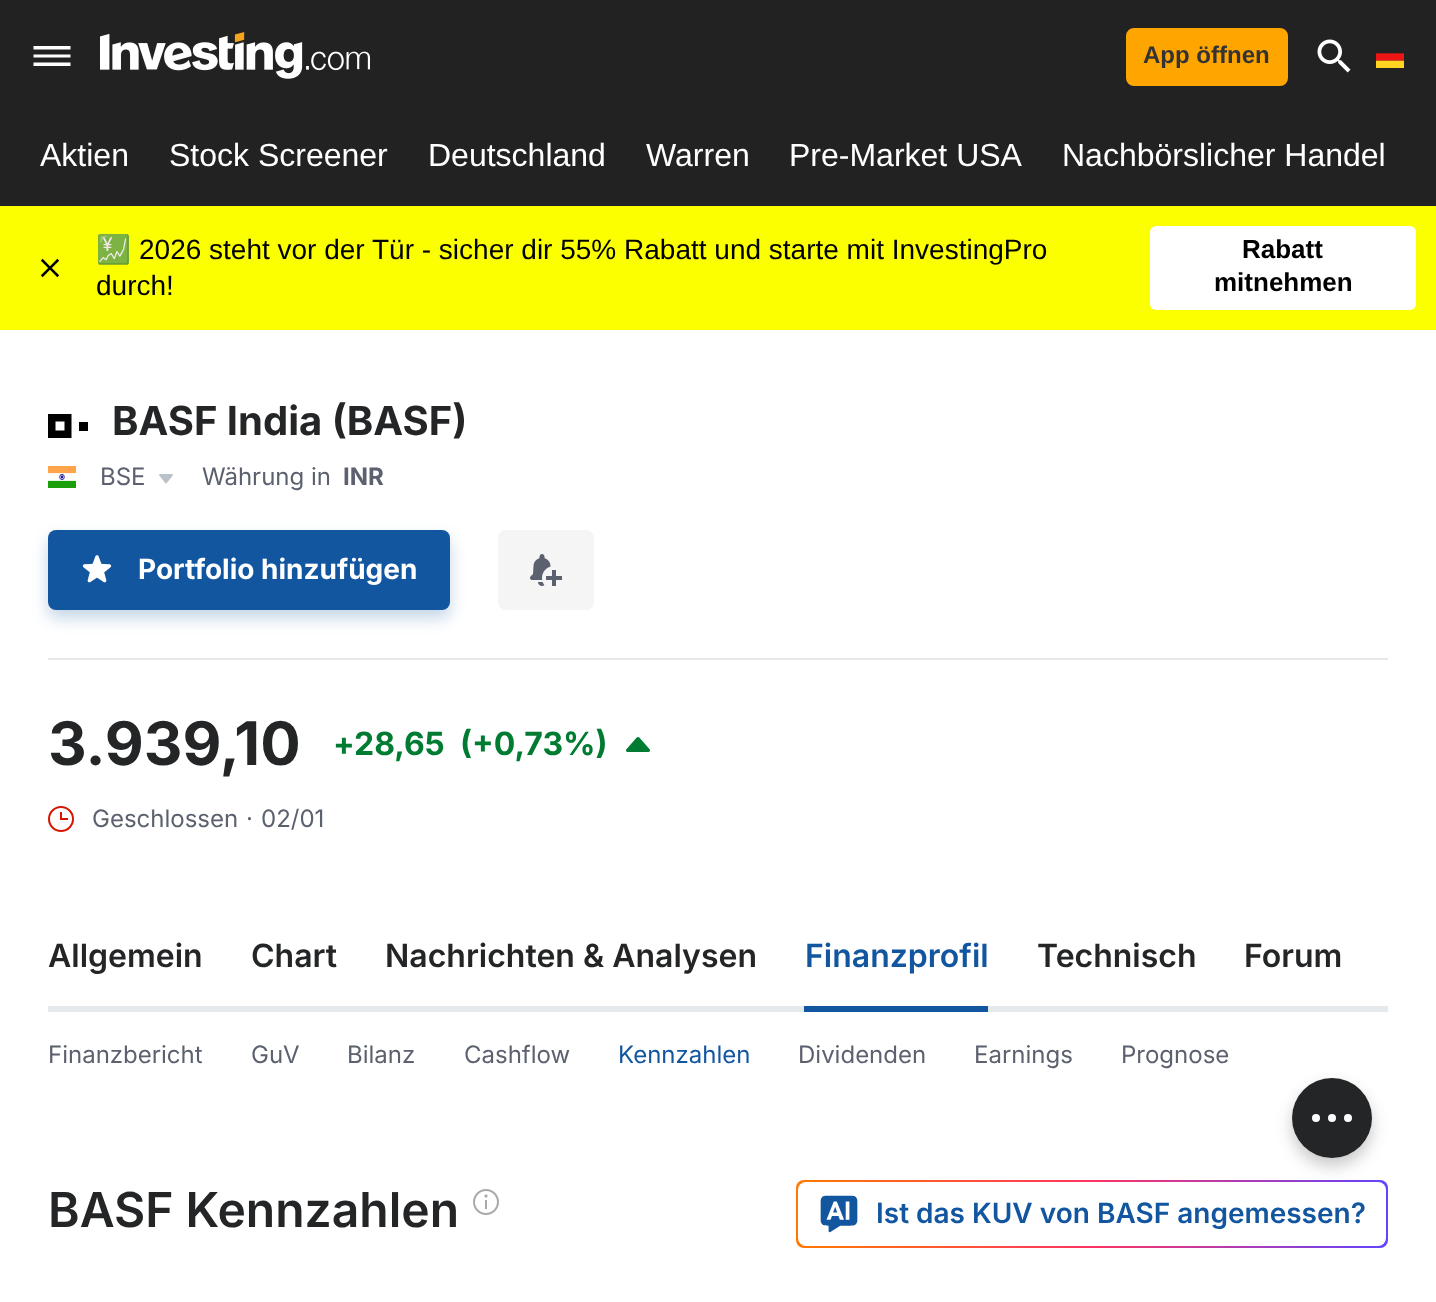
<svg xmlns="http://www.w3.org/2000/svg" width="1436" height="1302">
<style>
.a{font:bold 24px Liberation Sans;fill:#333}
.b{font:32px Liberation Sans;fill:#fff}
.c{font:28px Noto Color Emoji;fill:#000}
.d{font:28px Liberation Sans;fill:#000}
.e{font:bold 26px Liberation Sans;fill:#000}
.f{font:bold 40px Inter;fill:#232526}
.g{font:24px Inter;fill:#5b616e}
.h{font:bold 24px Inter;fill:#5b616e}
.i{font:bold 28px Inter;fill:#fff}
.j{font:bold 60px Inter;fill:#232526}
.k{font:bold 32px Inter;fill:#007c32}
.l{font:600 32px Inter;fill:#232526}
.m{font:600 32px Inter;fill:#1256a0}
.n{font:24px Inter;fill:#1256a0}
.o{font:600 48px Inter;fill:#232526}
.p{font:600 28px Inter;fill:#1256a0}
</style>
<defs>
<linearGradient id="g1" gradientUnits="userSpaceOnUse" x1="796" y1="1214" x2="1388" y2="1214"><stop offset="0" stop-color="#ff7901"/><stop offset="0.5" stop-color="#ff3363"/><stop offset="1" stop-color="#6244ff"/></linearGradient>
</defs>
<rect width="100%" height="100%" fill="#fff"/>
<path fill="#222" d="M0 0h1436v206H0z"/>
<path fill="#fff" fill-rule="evenodd" d="M33.5 66h37v-3.5h-37zm0-8.5h37v-3h-37zm0-11.5v3.5h37v-3.5z"/>
<image href="1.png" x="100" y="32" width="270" height="47"/>
<rect fill="#ffa500" stroke="#ffa500" stroke-width="2" x="1127" y="29" width="160" height="56" rx="7"/>
<image href="2.png" x="1317" y="39" width="34" height="34"/>
<image href="3.png" x="1376" y="53" width="28" height="15"/>
<path fill="#fbff00" d="M0 206h1436v124H0z"/>
<image href="4.png" x="40" y="258" width="20" height="20"/>
<rect fill="#fff" x="1150" y="226" width="266" height="84" rx="6"/>
<path fill="#000" fill-rule="evenodd" d="M71.5 414v24h-23.5v-24zm-7 7.5h-9v9h9z"/>
<path fill="#000" d="M79 422h9v9H79z"/>
<image href="5.png" x="48" y="466" width="28" height="22"/>
<image href="6.png" x="159" y="474" width="14" height="10"/>
<rect fill="#1256a040" filter="blur(8px)" x="48" y="538" width="402" height="80" rx="8"/>
<rect fill="#1256a0" x="48" y="530" width="402" height="80" rx="8"/>
<image href="7.png" x="82" y="555" width="30" height="28"/>
<rect fill="#f5f5f5" x="498" y="530" width="96" height="80" rx="8"/>
<image href="8.png" x="530" y="554" width="32" height="32"/>
<path fill="#e6e9eb" d="M48 658h1340v2H48z"/>
<image href="9.png" x="626" y="737" width="24" height="15"/>
<image href="10.png" x="48" y="806" width="26" height="26"/>
<path fill="#e6e9eb" d="M48 1006h1340v6H48z"/>
<path fill="#1256a0" d="M804 1006h184v6H804z"/>
<image href="11.png" x="473" y="1189" width="26" height="26"/>
<rect fill="url(#g1)" x="796" y="1180" width="592" height="68" rx="8"/>
<rect fill="#fff" x="798" y="1182" width="588" height="64" rx="8"/>
<image href="12.png" x="820" y="1195" width="38" height="38"/>
<rect fill="#23252640" filter="blur(8px)" x="1292" y="1086" width="80" height="80" rx="40"/>
<circle fill="#232526" cx="1332" cy="1118" r="40"/>
<circle fill="#fff" cx="1348" cy="1118" r="4"/>
<circle fill="#fff" cx="1316" cy="1118" r="4"/>
<circle fill="#fff" cx="1332" cy="1118" r="4"/>
<text class="a" x="1143" y="63">App öffnen</text>
<text class="b" x="40" y="166">Aktien</text>
<text class="b" x="169" y="166">Stock Screener</text>
<text class="b" x="428" y="166">Deutschland</text>
<text class="b" x="646" y="166">Warren</text>
<text class="b" x="789" y="166">Pre-Market USA</text>
<text class="b" x="1062" y="166">Nachbörslicher Handel</text>
<text class="c" x="96" y="259">💹</text>
<text class="d" x="139" y="259">2026 steht vor der Tür - sicher dir 55% Rabatt und starte mit InvestingPro</text>
<text class="d" x="96" y="295">durch!</text>
<text class="e" x="1242" y="258">Rabatt</text>
<text class="e" x="1214" y="291">mitnehmen</text>
<text class="f" x="112" y="435">BASF India (BASF)</text>
<text class="g" x="100" y="485">BSE</text>
<text class="g" x="202" y="485">Währung in</text>
<text class="h" x="343" y="485">INR</text>
<text class="i" x="138" y="579">Portfolio hinzufügen</text>
<text class="j" x="48" y="765">3.939,10</text>
<text class="k" x="333" y="755">+</text>
<text class="k" x="354" y="755">28,65</text>
<text class="k" x="460" y="755">(+0,73%)</text>
<text class="g" x="92" y="827">Geschlossen</text>
<text class="g" x="246" y="827">·</text>
<text class="g" x="261" y="827">02/01</text>
<text class="l" x="48" y="967">Allgemein</text>
<text class="l" x="251" y="967">Chart</text>
<text class="l" x="385" y="967">Nachrichten &amp; Analysen</text>
<text class="m" x="805" y="967">Finanzprofil</text>
<text class="l" x="1037" y="967">Technisch</text>
<text class="l" x="1244" y="967">Forum</text>
<text class="g" x="48" y="1063">Finanzbericht</text>
<text class="g" x="251" y="1063">GuV</text>
<text class="g" x="347" y="1063">Bilanz</text>
<text class="g" x="464" y="1063">Cashflow</text>
<text class="n" x="618" y="1063">Kennzahlen</text>
<text class="g" x="798" y="1063">Dividenden</text>
<text class="g" x="974" y="1063">Earnings</text>
<text class="g" x="1121" y="1063">Prognose</text>
<text class="o" x="48" y="1227">BASF Kennzahlen</text>
<text class="p" x="876" y="1223">Ist das KUV von BASF angemessen?</text>
</svg>
